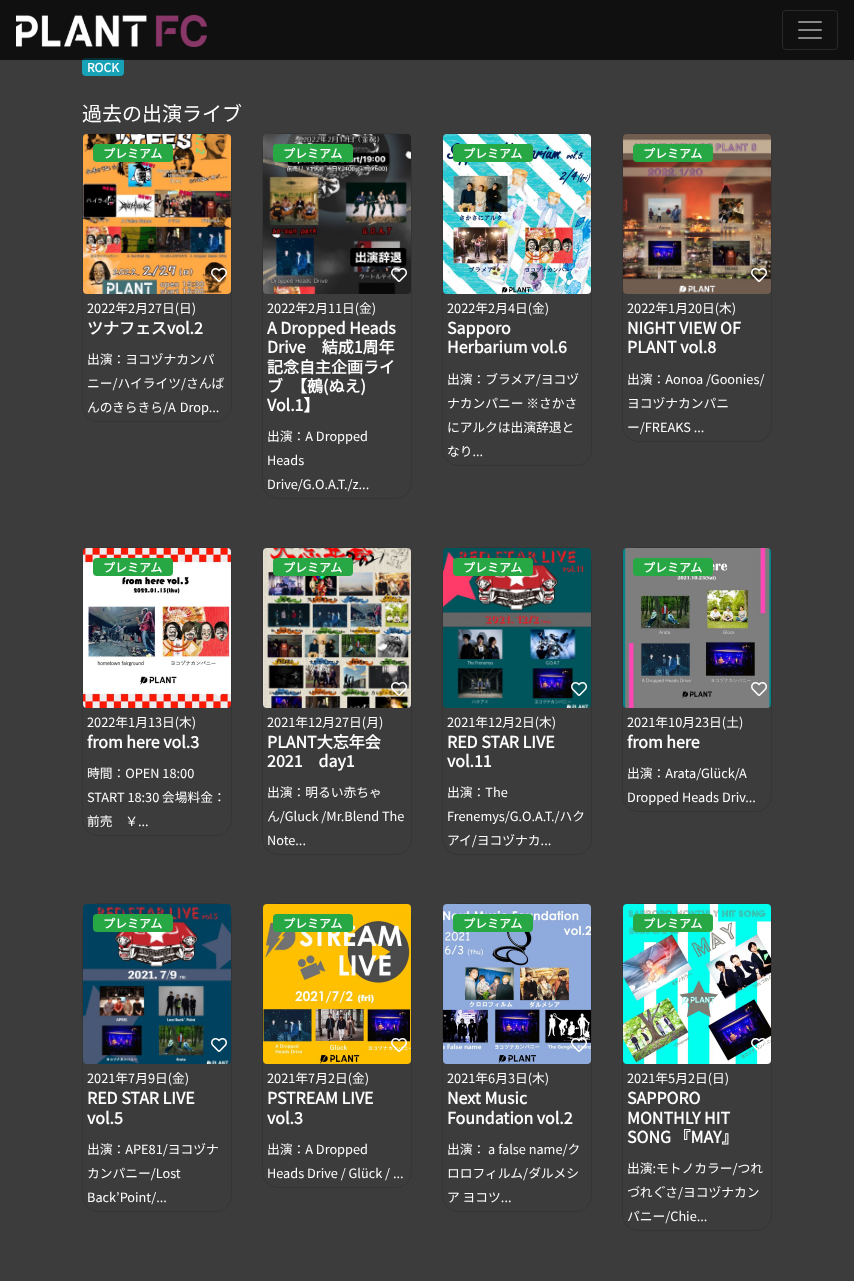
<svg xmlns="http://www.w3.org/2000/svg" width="854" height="1281">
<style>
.a{font:bold 12px Noto Sans JP;fill:#fff}
.b{font:20px Noto Sans JP;fill:#fff}
.c{font:12.75px Noto Sans JP;fill:#fff}
.d{font:bold 16px Noto Sans JP;fill:#fff}
</style>
<rect width="100%" height="100%" fill="#3c3c3c"/>
<rect fill="#17a2b8" x="82" y="58" width="42" height="18" rx="4"/>
<path fill="#000000b8" d="M0 0h854v60H0z"/>
<image href="1.png" x="16" y="14" width="191" height="33"/>
<rect fill="none" stroke="#292929" x="782.5" y="10.5" width="55" height="39" rx="3.5"/>
<image href="2.png" x="798" y="21" width="24" height="18"/>
<rect fill="none" stroke="#353535" x="82.5" y="133.5" width="149" height="288" rx="15.5"/>
<image href="3.png" x="83" y="134" width="148" height="160"/>
<rect fill="#28a745" x="93" y="144" width="80" height="18" rx="4"/>
<image href="4.png" x="211" y="268" width="16" height="14"/>
<rect fill="none" stroke="#353535" x="262.5" y="133.5" width="149" height="365" rx="15.5"/>
<image href="5.png" x="263" y="134" width="148" height="160"/>
<rect fill="#28a745" x="273" y="144" width="80" height="18" rx="4"/>
<image href="6.png" x="391" y="268" width="16" height="14"/>
<rect fill="none" stroke="#353535" x="442.5" y="133.5" width="149" height="332" rx="15.5"/>
<image href="7.png" x="443" y="134" width="148" height="160"/>
<rect fill="#28a745" x="453" y="144" width="80" height="18" rx="4"/>
<image href="8.png" x="571" y="268" width="16" height="14"/>
<rect fill="none" stroke="#353535" x="622.5" y="133.5" width="149" height="308" rx="15.5"/>
<image href="9.png" x="623" y="134" width="148" height="160"/>
<rect fill="#28a745" x="633" y="144" width="80" height="18" rx="4"/>
<image href="10.png" x="751" y="268" width="16" height="14"/>
<rect fill="none" stroke="#353535" x="82.5" y="547.5" width="149" height="288" rx="15.5"/>
<image href="11.png" x="83" y="548" width="148" height="160"/>
<rect fill="#28a745" x="93" y="558" width="80" height="18" rx="4"/>
<image href="12.png" x="216" y="692" width="7" height="4"/>
<rect fill="none" stroke="#353535" x="262.5" y="547.5" width="149" height="307" rx="15.5"/>
<image href="13.png" x="263" y="548" width="148" height="160"/>
<rect fill="#28a745" x="273" y="558" width="80" height="18" rx="4"/>
<image href="14.png" x="391" y="682" width="16" height="14"/>
<rect fill="none" stroke="#353535" x="442.5" y="547.5" width="149" height="307" rx="15.5"/>
<image href="15.png" x="443" y="548" width="148" height="160"/>
<rect fill="#28a745" x="453" y="558" width="80" height="18" rx="4"/>
<image href="16.png" x="571" y="682" width="16" height="14"/>
<rect fill="none" stroke="#353535" x="622.5" y="547.5" width="149" height="264" rx="15.5"/>
<image href="17.png" x="623" y="548" width="148" height="160"/>
<rect fill="#28a745" x="633" y="558" width="80" height="18" rx="4"/>
<image href="18.png" x="751" y="682" width="16" height="14"/>
<rect fill="none" stroke="#353535" x="82.5" y="903.5" width="149" height="308" rx="15.5"/>
<image href="19.png" x="83" y="904" width="148" height="160"/>
<rect fill="#28a745" x="93" y="914" width="80" height="18" rx="4"/>
<image href="20.png" x="211" y="1038" width="16" height="14"/>
<rect fill="none" stroke="#353535" x="262.5" y="903.5" width="149" height="284" rx="15.5"/>
<image href="21.png" x="263" y="904" width="148" height="160"/>
<rect fill="#28a745" x="273" y="914" width="80" height="18" rx="4"/>
<image href="22.png" x="391" y="1038" width="16" height="14"/>
<rect fill="none" stroke="#353535" x="442.5" y="903.5" width="149" height="308" rx="15.5"/>
<image href="23.png" x="443" y="904" width="148" height="160"/>
<rect fill="#28a745" x="453" y="914" width="80" height="18" rx="4"/>
<image href="24.png" x="571" y="1038" width="16" height="14"/>
<rect fill="none" stroke="#353535" x="622.5" y="903.5" width="149" height="327" rx="15.5"/>
<image href="25.png" x="623" y="904" width="148" height="160"/>
<rect fill="#28a745" x="633" y="914" width="80" height="18" rx="4"/>
<image href="26.png" x="751" y="1038" width="16" height="14"/>
<text class="a" x="87" y="72">ROCK</text>
<text class="b" x="82" y="121">過去の出演ライブ</text>
<text class="a" x="103" y="158">プレミアム</text>
<text class="c" x="87" y="313">2022年2月27日(日)</text>
<text class="d" x="87" y="334">ツナフェスvol.2</text>
<text class="c" x="87" y="364">出演：ヨコヅナカンパ</text>
<text class="c" x="87" y="388">ニー/ハイライツ/さんば</text>
<text class="c" x="87" y="412" word-spacing="1">んのきらきら/A Drop...</text>
<text class="a" x="283" y="158">プレミアム</text>
<text class="c" x="267" y="313">2022年2月11日(金)</text>
<text class="d" x="267" y="334">A Dropped Heads</text>
<text class="d" x="267" y="353">Drive　結成1周年</text>
<text class="d" x="267" y="373">記念自主企画ライ</text>
<text class="d" x="267" y="392">ブ　【鵺(ぬえ)</text>
<text class="d" x="267" y="411">Vol.1】</text>
<text class="c" x="267" y="441">出演：A Dropped</text>
<text class="c" x="267" y="465">Heads</text>
<text class="c" x="267" y="489">Drive/G.O.A.T./z...</text>
<text class="a" x="463" y="158">プレミアム</text>
<text class="c" x="447" y="313">2022年2月4日(金)</text>
<text class="d" x="447" y="334">Sapporo</text>
<text class="d" x="447" y="353">Herbarium vol.6</text>
<text class="c" x="447" y="384">出演：ブラメア/ヨコヅ</text>
<text class="c" x="447" y="408">ナカンパニー ※さかさ</text>
<text class="c" x="447" y="432">にアルクは出演辞退と</text>
<text class="c" x="447" y="456">なり...</text>
<text class="a" x="643" y="158">プレミアム</text>
<text class="c" x="627" y="313">2022年1月20日(木)</text>
<text class="d" x="627" y="334">NIGHT VIEW OF</text>
<text class="d" x="627" y="353">PLANT vol.8</text>
<text class="c" x="627" y="384">出演：Aonoa /Goonies/</text>
<text class="c" x="627" y="408">ヨコヅナカンパニ</text>
<text class="c" x="627" y="432">ー/FREAKS ...</text>
<text class="a" x="103" y="572">プレミアム</text>
<text class="c" x="87" y="727">2022年1月13日(木)</text>
<text class="d" x="87" y="748">from here vol.3</text>
<text class="c" x="87" y="778">時間：OPEN 18:00</text>
<text class="c" x="87" y="802">START 18:30 会場料金：</text>
<text class="c" x="87" y="826">前売　￥...</text>
<text class="a" x="283" y="572">プレミアム</text>
<text class="c" x="267" y="727">2021年12月27日(月)</text>
<text class="d" x="267" y="748">PLANT大忘年会</text>
<text class="d" x="267" y="767">2021　day1</text>
<text class="c" x="267" y="797">出演：明るい赤ちゃ</text>
<text class="c" x="267" y="821">ん/Gluck /Mr.Blend The</text>
<text class="c" x="267" y="845">Note...</text>
<text class="a" x="463" y="572">プレミアム</text>
<text class="c" x="447" y="727">2021年12月2日(木)</text>
<text class="d" x="447" y="748">RED STAR LIVE</text>
<text class="d" x="447" y="767">vol.11</text>
<text class="c" x="447" y="797">出演：The</text>
<text class="c" x="447" y="821">Frenemys/G.O.A.T./ハク</text>
<text class="c" x="447" y="845">アイ/ヨコヅナカ...</text>
<text class="a" x="643" y="572">プレミアム</text>
<text class="c" x="627" y="727">2021年10月23日(土)</text>
<text class="d" x="627" y="748">from here</text>
<text class="c" x="627" y="778">出演：Arata/Glück/A</text>
<text class="c" x="627" y="802">Dropped Heads Driv...</text>
<text class="a" x="103" y="928">プレミアム</text>
<text class="c" x="87" y="1083">2021年7月9日(金)</text>
<text class="d" x="87" y="1104">RED STAR LIVE</text>
<text class="d" x="87" y="1124">vol.5</text>
<text class="c" x="87" y="1154">出演：APE81/ヨコヅナ</text>
<text class="c" x="87" y="1178">カンパニー/Lost</text>
<text class="c" x="87" y="1202">Back’Point/...</text>
<text class="a" x="283" y="928">プレミアム</text>
<text class="c" x="267" y="1083">2021年7月2日(金)</text>
<text class="d" x="267" y="1104">PSTREAM LIVE</text>
<text class="d" x="267" y="1124">vol.3</text>
<text class="c" x="267" y="1154">出演：A Dropped</text>
<text class="c" x="267" y="1178">Heads Drive / Glück / ...</text>
<text class="a" x="463" y="928">プレミアム</text>
<text class="c" x="447" y="1083">2021年6月3日(木)</text>
<text class="d" x="447" y="1104">Next Music</text>
<text class="d" x="447" y="1124">Foundation vol.2</text>
<text class="c" x="447" y="1154">出演： a false name/ク</text>
<text class="c" x="447" y="1178">ロロフィルム/ダルメシ</text>
<text class="c" x="447" y="1202">ア ヨコツ...</text>
<text class="a" x="643" y="928">プレミアム</text>
<text class="c" x="627" y="1083">2021年5月2日(日)</text>
<text class="d" x="627" y="1104">SAPPORO</text>
<text class="d" x="627" y="1124">MONTHLY HIT</text>
<text class="d" x="627" y="1143">SONG 『MAY』</text>
<text class="c" x="627" y="1173">出演:モトノカラー/つれ</text>
<text class="c" x="627" y="1197">づれぐさ/ヨコヅナカン</text>
<text class="c" x="627" y="1221">パニー/Chie...</text>
</svg>
